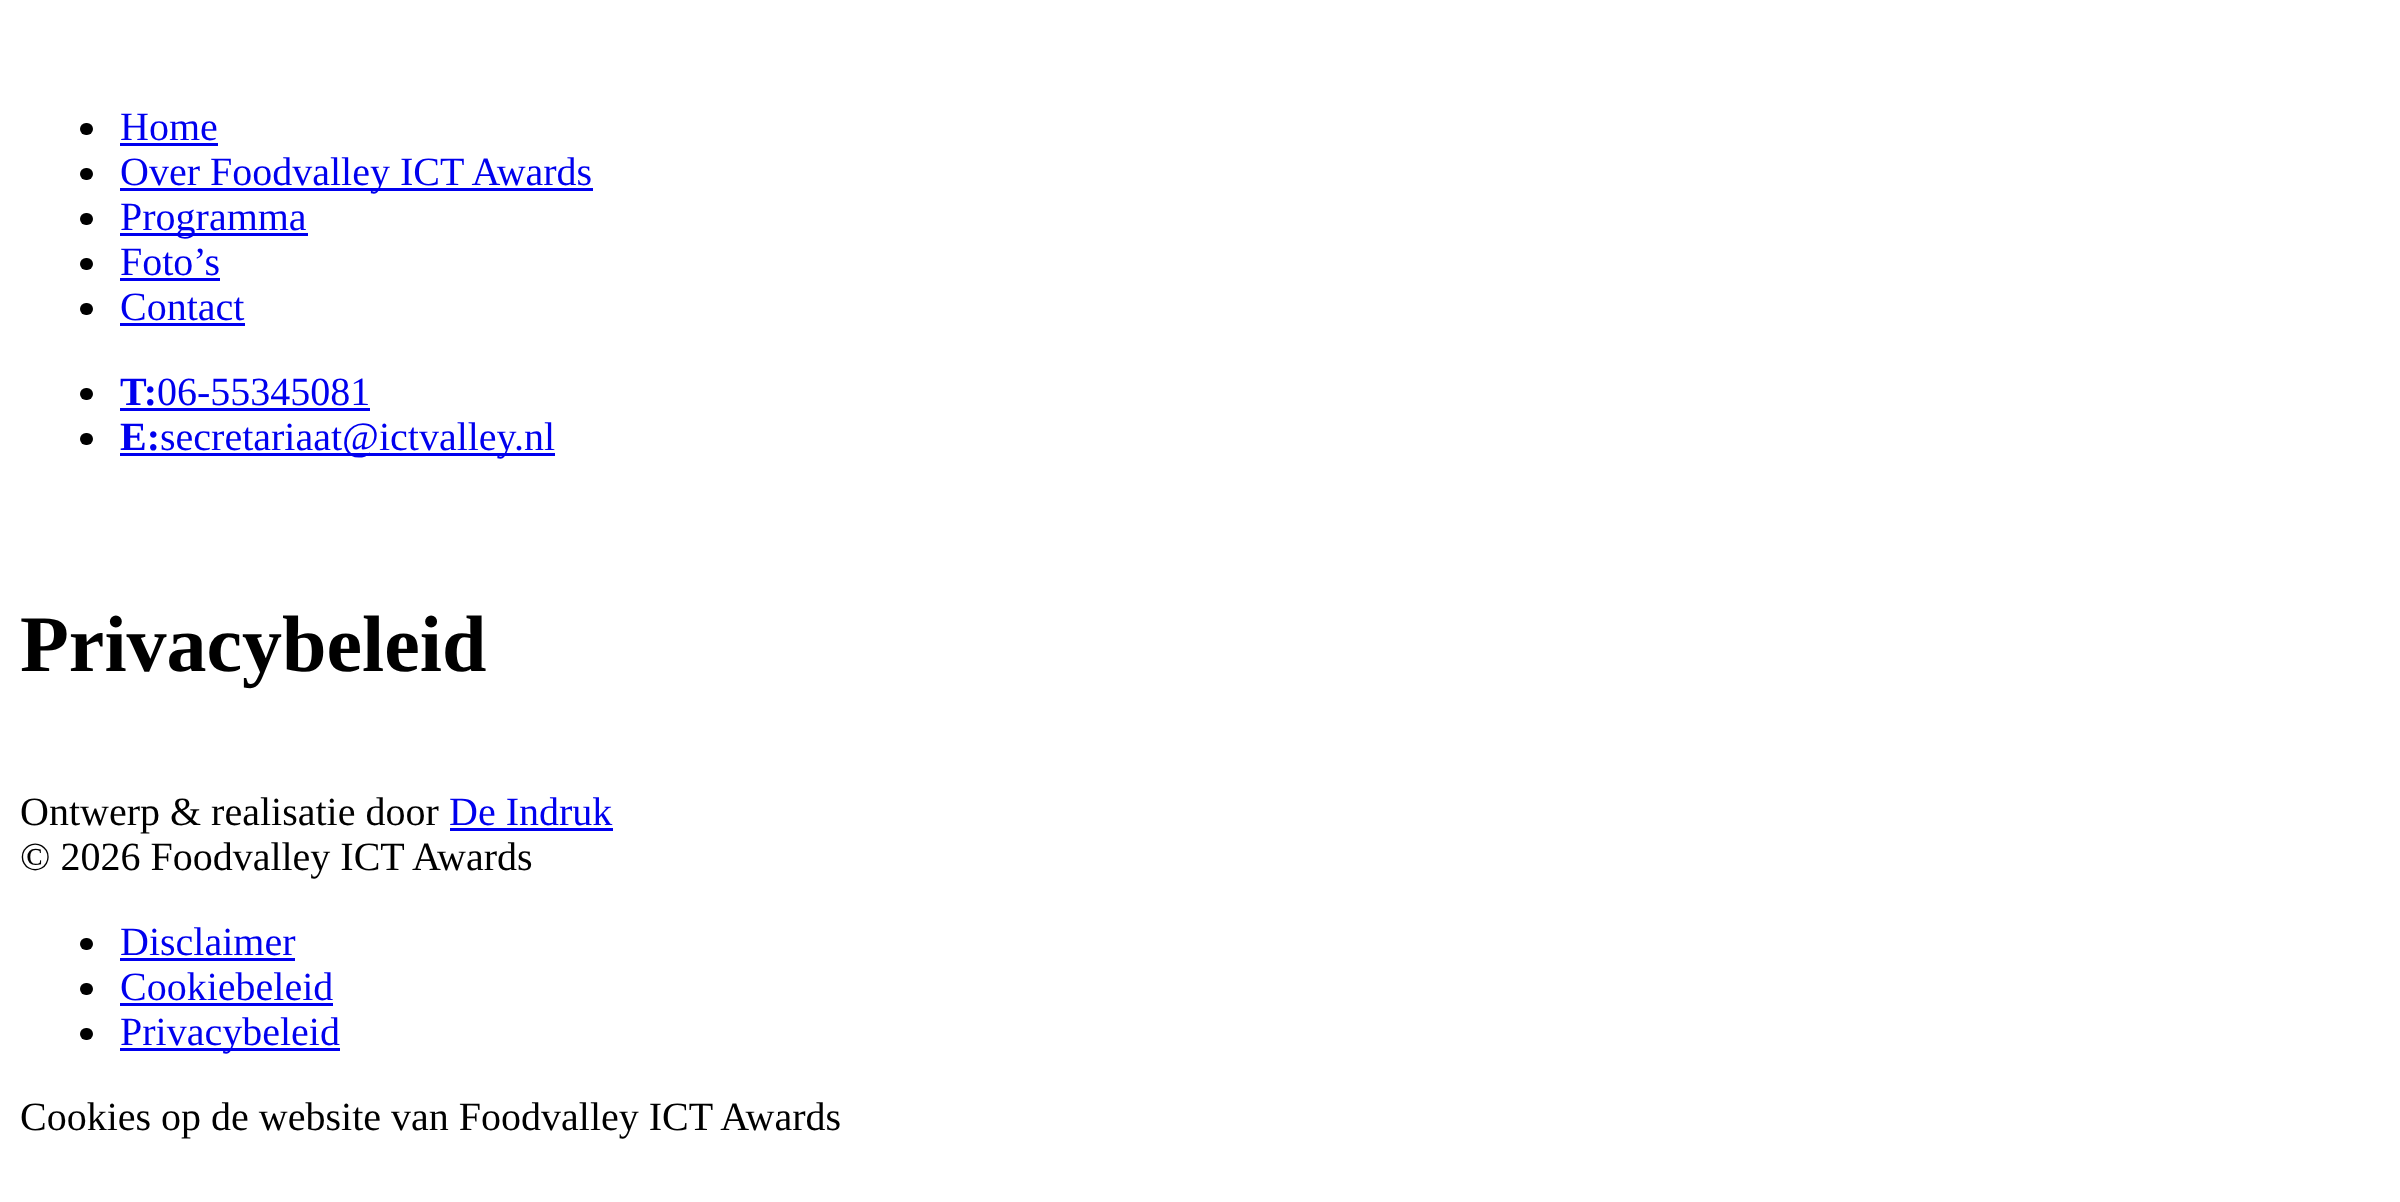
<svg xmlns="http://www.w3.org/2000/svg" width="2400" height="1202">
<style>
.a{font:40px Liberation Serif;fill:#00e}
.b{font:bold 40px Liberation Serif;fill:#00e}
.c{font:bold 80px Liberation Serif;fill:#000}
.d{font:40px Liberation Serif;fill:#000}
</style>
<rect width="100%" height="100%" fill="#fff"/>
<rect fill="#000" x="80" y="123" width="13" height="12" rx="6"/>
<path fill="#00e" d="M120 143h98v3H120z"/>
<rect fill="#000" x="80" y="168" width="13" height="12" rx="6"/>
<path fill="#00e" d="M120 188h473v3H120z"/>
<rect fill="#000" x="80" y="213" width="13" height="12" rx="6"/>
<path fill="#00e" d="M120 233h188v3H120z"/>
<rect fill="#000" x="80" y="258" width="13" height="12" rx="6"/>
<path fill="#00e" d="M120 278h100v3H120z"/>
<rect fill="#000" x="80" y="303" width="13" height="12" rx="6"/>
<path fill="#00e" d="M120 323h125v3H120z"/>
<rect fill="#000" x="80" y="388" width="13" height="12" rx="6"/>
<path fill="#00e" d="M120 408h250v3H120z"/>
<rect fill="#000" x="80" y="433" width="13" height="12" rx="6"/>
<path fill="#00e" d="M120 453h435v3H120z"/>
<path fill="#00e" d="M450 828h163v3H450z"/>
<rect fill="#000" x="80" y="938" width="13" height="12" rx="6"/>
<path fill="#00e" d="M120 958h175v3H120z"/>
<rect fill="#000" x="80" y="983" width="13" height="12" rx="6"/>
<path fill="#00e" d="M120 1003h213v3H120z"/>
<rect fill="#000" x="80" y="1028" width="13" height="12" rx="6"/>
<path fill="#00e" d="M120 1048h220v3H120z"/>
<text class="a" x="120" y="140">Home</text>
<text class="a" x="120" y="185">Over Foodvalley ICT Awards</text>
<text class="a" x="120" y="230">Programma</text>
<text class="a" x="120" y="275">Foto’s</text>
<text class="a" x="120" y="320">Contact</text>
<text class="b" x="120" y="405">T:</text>
<text class="a" x="157" y="405">06-55345081</text>
<text class="b" x="120" y="450">E:</text>
<text class="a" x="160" y="450">secretariaat@ictvalley.nl</text>
<text class="c" x="20" y="671">Privacybeleid</text>
<text class="d" x="20" y="825">Ontwerp &amp; realisatie door</text>
<text class="a" x="449" y="825">De Indruk</text>
<text class="d" x="20" y="870">© 2026 Foodvalley ICT Awards</text>
<text class="a" x="120" y="955">Disclaimer</text>
<text class="a" x="120" y="1000">Cookiebeleid</text>
<text class="a" x="120" y="1045">Privacybeleid</text>
<text class="d" x="20" y="1130">Cookies op de website van Foodvalley ICT Awards</text>
</svg>
